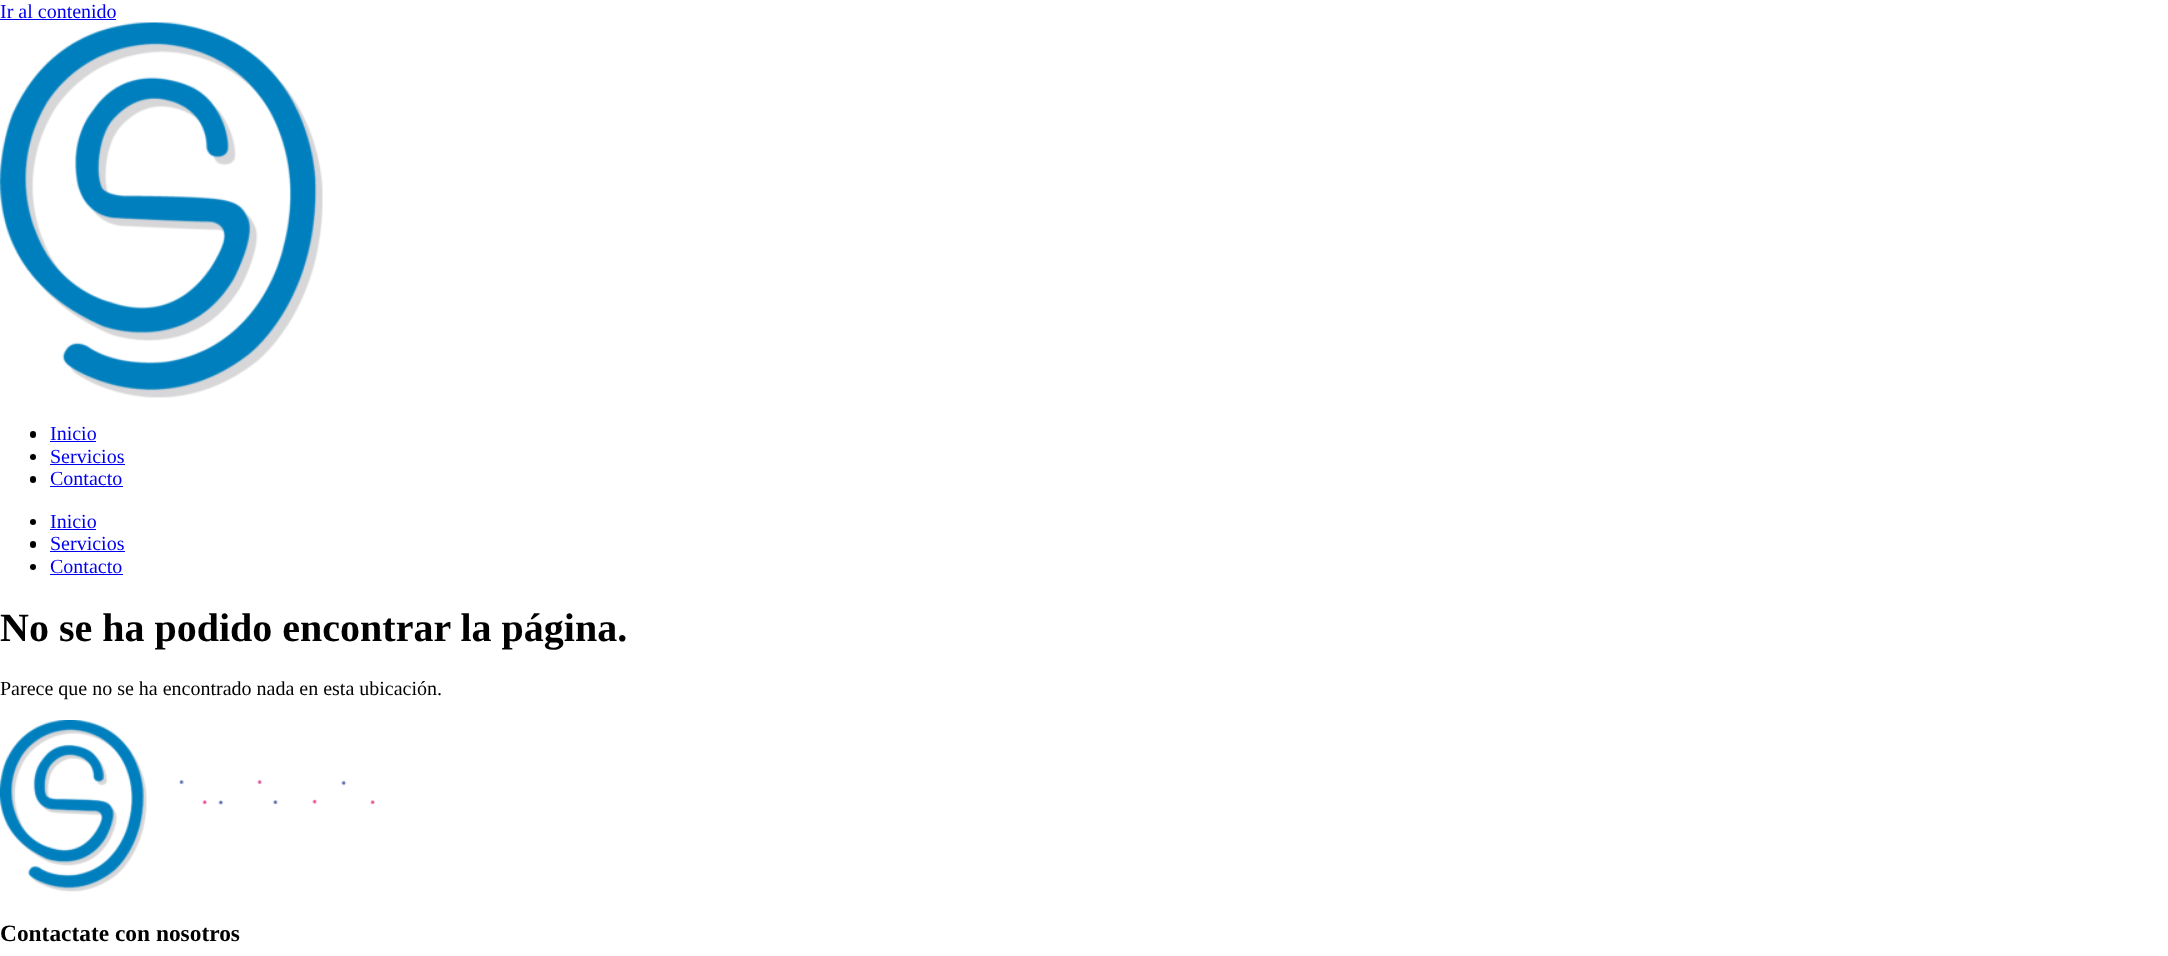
<svg xmlns="http://www.w3.org/2000/svg" width="2168" height="956">
<style>
.a{font:20px Liberation Serif;fill:#00e}
.b{font:bold 40px Liberation Serif;fill:#000}
.c{font:20px Liberation Serif;fill:#000}
.d{font:bold 23.4px Liberation Serif;fill:#000}
</style>
<rect width="100%" height="100%" fill="#fff"/>
<path fill="#00e" d="M0 19h116v1H0z"/>
<image href="1.png" x="0" y="22" width="323" height="376"/>
<rect fill="#000" x="30" y="431" width="6" height="7" rx="3"/>
<path fill="#00e" d="M50 441h46v1H50z"/>
<circle fill="#000" cx="33" cy="457" r="3"/>
<path fill="#00e" d="M50 464h75v1H50z"/>
<rect fill="#000" x="30" y="476" width="6" height="7" rx="3"/>
<path fill="#00e" d="M50 486h73v1H50z"/>
<circle fill="#000" cx="33" cy="522" r="3"/>
<path fill="#00e" d="M50 529h46v1H50z"/>
<rect fill="#000" x="30" y="541" width="6" height="7" rx="3"/>
<path fill="#00e" d="M50 551h75v1H50z"/>
<circle fill="#000" cx="33" cy="567" r="3"/>
<path fill="#00e" d="M50 574h73v1H50z"/>
<image href="2.png" x="0" y="720" width="375" height="172"/>
<text class="a" x="0" y="18">Ir al contenido</text>
<text class="a" x="50" y="440">Inicio</text>
<text class="a" x="50" y="463">Servicios</text>
<text class="a" x="50" y="485">Contacto</text>
<text class="a" x="50" y="528">Inicio</text>
<text class="a" x="50" y="550">Servicios</text>
<text class="a" x="50" y="573">Contacto</text>
<text class="b" x="0" y="641">No se ha podido encontrar la página.</text>
<text class="c" x="0" y="695">Parece que no se ha encontrado nada en esta ubicación.</text>
<text class="d" x="0" y="941">Contactate con nosotros</text>
</svg>
